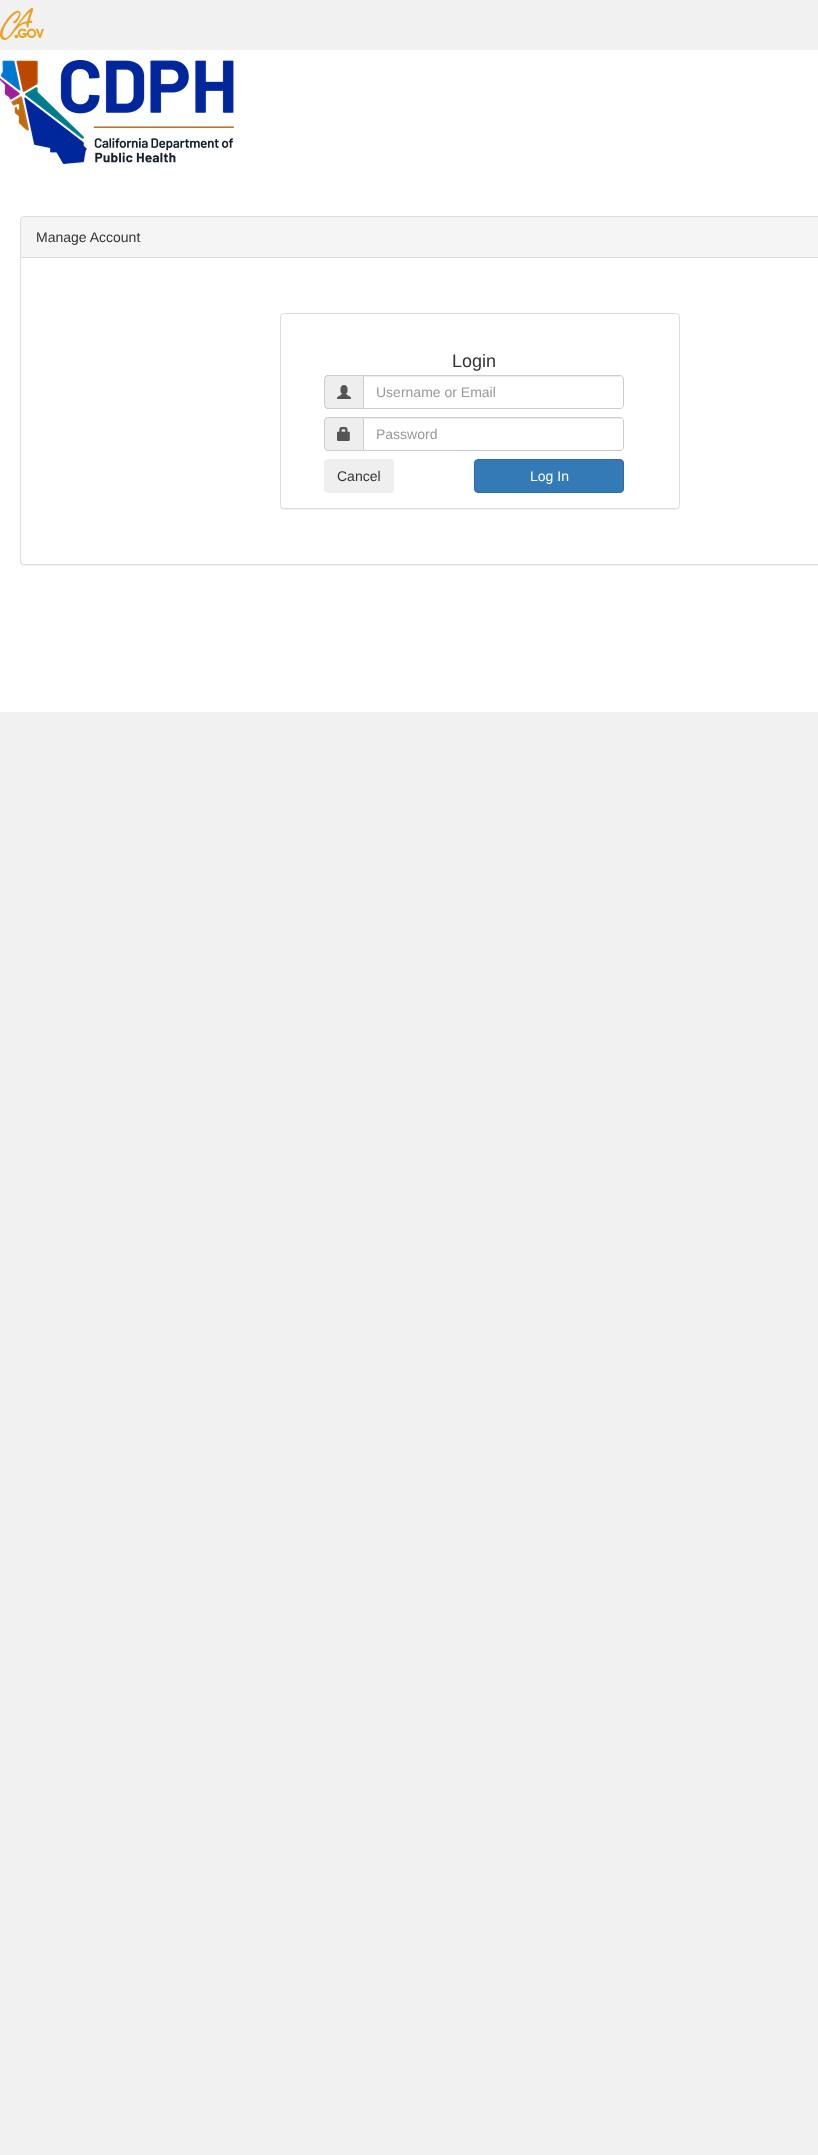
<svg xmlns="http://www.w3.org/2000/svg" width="818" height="2155">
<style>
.a{font:14px Liberation Sans;fill:#333}
.b{font:18px Liberation Sans;fill:#333}
.c{font:14px Liberation Sans;fill:#999}
.d{font:14px Liberation Sans;fill:#fff}
</style>
<rect width="100%" height="100%" fill="#f1f1f1"/>
<image href="1.png" x="0" y="8" width="44" height="32"/>
<path fill="#fff" d="M0 50h818v662H0z"/>
<image href="2.png" x="0" y="60" width="234" height="104"/>
<rect fill="#0000000d" filter="blur(0.5px)" x="20" y="217" width="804" height="349" rx="4"/>
<rect fill="#fff" stroke="#ddd" x="20.5" y="216.5" width="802" height="348" rx="3.5"/>
<path fill="#f5f5f5" d="M24 217h794c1.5 0 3 1.5 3 3v38h-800v-38c0-1.5 1.5-3 3-3z"/>
<path fill="#ddd" d="M21 257h797v1H21z"/>
<rect fill="#0000000d" filter="blur(0.5px)" x="280" y="314" width="400" height="196" rx="4"/>
<rect fill="#fff" stroke="#ddd" x="280.5" y="313.5" width="399" height="195" rx="3.5"/>
<path fill="#eee" d="M328 375h35v34h-35c-2 0-4-2-4-4v-26c0-2 2-4 4-4z"/>
<path fill="#ccc" fill-rule="evenodd" d="M328 375h35v34h-35c-2 0-4-2-4-4v-26c0-2 2-4 4-4zm0 1h35v32h-35c-1.5 0-3-1.5-3-3v-26c0-1.5 1.5-3 3-3z"/>
<image href="3.png" x="337" y="385" width="14" height="14"/>
<path fill="#ececec" d="M364 377h257l2 1v2v-1c0-2-1-3-3-3h-256z"/>
<path fill="none" stroke="#ccc" d="M363.5 375.5h256.5c2 0 3.5 1.5 3.5 3.5v26c0 2-1.5 3.5-3.5 3.5h-256.5z"/>
<path fill="#eee" d="M328 417h35v34h-35c-2 0-4-2-4-4v-26c0-2 2-4 4-4z"/>
<path fill="#ccc" fill-rule="evenodd" d="M328 417h35v34h-35c-2 0-4-2-4-4v-26c0-2 2-4 4-4zm0 1h35v32h-35c-1.5 0-3-1.5-3-3v-26c0-1.5 1.5-3 3-3z"/>
<image href="4.png" x="337" y="427" width="13" height="14"/>
<path fill="#ececec" d="M364 419h257l2 1v2v-1c0-2-1-3-3-3h-256z"/>
<path fill="none" stroke="#ccc" d="M363.5 417.5h256.5c2 0 3.5 1.5 3.5 3.5v26c0 2-1.5 3.5-3.5 3.5h-256.5z"/>
<rect fill="#efefef" x="324" y="459" width="70" height="34" rx="4"/>
<rect fill="#337ab7" stroke="#2e6da4" x="474.5" y="459.5" width="149" height="33" rx="3.5"/>
<text class="a" x="36" y="242">Manage Account</text>
<text class="b" x="452" y="367">Login</text>
<text class="c" x="376" y="397">Username or Email</text>
<text class="c" x="376" y="439">Password</text>
<text class="a" x="337" y="481">Cancel</text>
<text class="d" x="530" y="481">Log In</text>
</svg>
